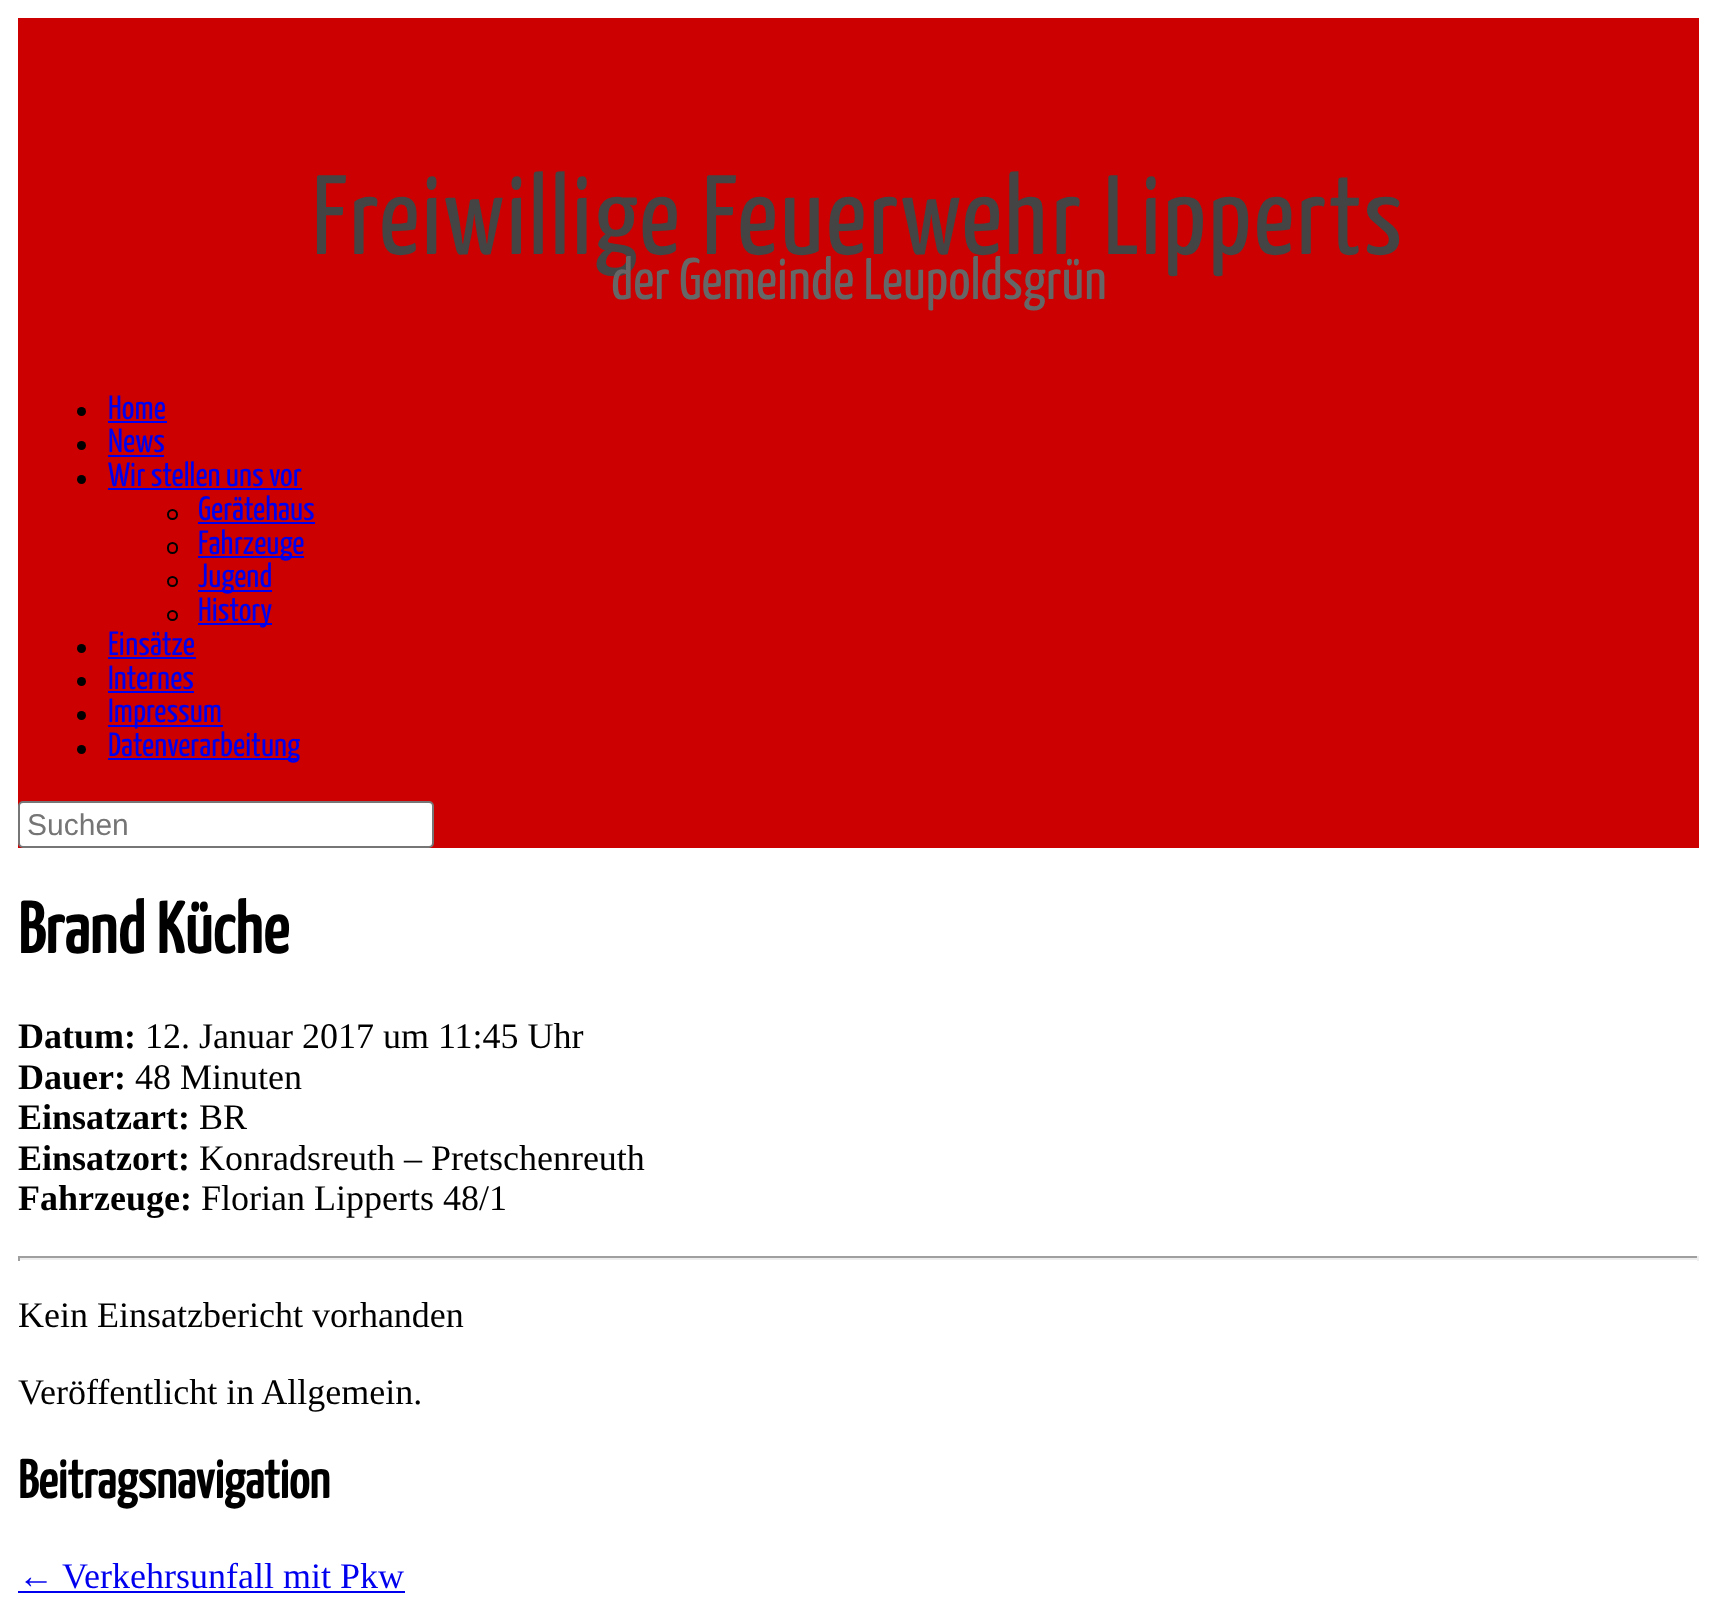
<svg xmlns="http://www.w3.org/2000/svg" width="1715" height="1613">
<style>
.a{font:200 112.5px Yanone Kaffeesatz;letter-spacing:2.25px;fill:#444}
.b{font:200 58.5px Yanone Kaffeesatz;fill:#666}
.c{font:200 33.75px Yanone Kaffeesatz;fill:#00e}
.d{font:30px Liberation Sans;fill:#757575}
.e{font:bold 72px Yanone Kaffeesatz;fill:#000}
.f{font:bold 36px Liberation Serif;fill:#000}
.g{font:36px Liberation Serif;fill:#000}
.h{font:bold 54px Yanone Kaffeesatz;fill:#000}
.i{font:36px Liberation Serif;fill:#00e}
</style>
<rect width="100%" height="100%" fill="#fff"/>
<path fill="#c00" d="M18 18h1681v830H18z"/>
<circle fill="#000" cx="81.5" cy="411.5" r="4.5"/>
<path fill="#00e" d="M108 421h59v2H108z"/>
<circle fill="#000" cx="81.5" cy="445.5" r="4.5"/>
<path fill="#00e" d="M108 455h56v2H108z"/>
<circle fill="#000" cx="81.5" cy="479.5" r="4.5"/>
<path fill="#00e" d="M108 488h194v2H108z"/>
<circle fill="none" stroke="#000" stroke-width="2" cx="172.5" cy="514.5" r="4.5"/>
<path fill="#00e" d="M198 522h117v2H198z"/>
<rect fill="none" stroke="#000" stroke-width="2" x="168" y="543" width="9" height="10" rx="4.5"/>
<path fill="#00e" d="M198 556h106v2H198z"/>
<circle fill="none" stroke="#000" stroke-width="2" cx="172.5" cy="581.5" r="4.5"/>
<path fill="#00e" d="M198 590h74v2H198z"/>
<circle fill="none" stroke="#000" stroke-width="2" cx="172.5" cy="615.5" r="4.5"/>
<path fill="#00e" d="M198 623h74v2H198z"/>
<circle fill="#000" cx="81.5" cy="648.5" r="4.5"/>
<path fill="#00e" d="M108 657h88v2H108z"/>
<circle fill="#000" cx="81.5" cy="681.5" r="4.5"/>
<path fill="#00e" d="M108 691h86v2H108z"/>
<circle fill="#000" cx="81.5" cy="715.5" r="4.5"/>
<path fill="#00e" d="M108 725h115v2H108z"/>
<circle fill="#000" cx="81.5" cy="749.5" r="4.5"/>
<path fill="#00e" d="M108 758h191v2H108z"/>
<rect fill="#fff" stroke="#767676" stroke-width="2" x="19" y="802" width="414" height="45" rx="4"/>
<path fill="#9f9f9f" d="M18 1256h1681v2H18z"/>
<path fill="#eee" d="M1697 1256h2v5H1697z"/>
<path fill="#eee" d="M18 1258h1681v2H18z"/>
<path fill="#9f9f9f" d="M18 1256h2v5H18z"/>
<path fill="#00e" d="M18 1591h387v2H18z"/>
<text class="a" x="312" y="254">Freiwillige Feuerwehr Lipperts</text>
<text class="b" x="611" y="299">der Gemeinde Leupoldsgrün</text>
<text class="c" x="108" y="419">Home</text>
<text class="c" x="108" y="452">News</text>
<text class="c" x="108" y="486">Wir stellen uns vor</text>
<text class="c" x="198" y="520">Gerätehaus</text>
<text class="c" x="198" y="554">Fahrzeuge</text>
<text class="c" x="198" y="587">Jugend</text>
<text class="c" x="198" y="621">History</text>
<text class="c" x="108" y="655">Einsätze</text>
<text class="c" x="108" y="689">Internes</text>
<text class="c" x="108" y="722">Impressum</text>
<text class="c" x="108" y="756">Datenverarbeitung</text>
<text class="d" x="27" y="835">Suchen</text>
<text class="e" x="18" y="953">Brand Küche</text>
<text class="f" x="18" y="1048">Datum:</text>
<text class="g" x="145" y="1048">12. Januar 2017 um 11:45 Uhr</text>
<text class="f" x="18" y="1089">Dauer:</text>
<text class="g" x="135" y="1089">48 Minuten</text>
<text class="f" x="18" y="1129">Einsatzart:</text>
<text class="g" x="199" y="1129">BR</text>
<text class="f" x="18" y="1170">Einsatzort:</text>
<text class="g" x="199" y="1170">Konradsreuth – Pretschenreuth</text>
<text class="f" x="18" y="1210">Fahrzeuge:</text>
<text class="g" x="201" y="1210">Florian Lipperts 48/1</text>
<text class="g" x="18" y="1327">Kein Einsatzbericht vorhanden</text>
<text class="g" x="18" y="1404">Veröffentlicht in Allgemein.</text>
<text class="h" x="18" y="1498">Beitragsnavigation</text>
<text class="i" x="18" y="1588">←</text>
<text class="i" x="62" y="1588">Verkehrsunfall mit Pkw</text>
</svg>
